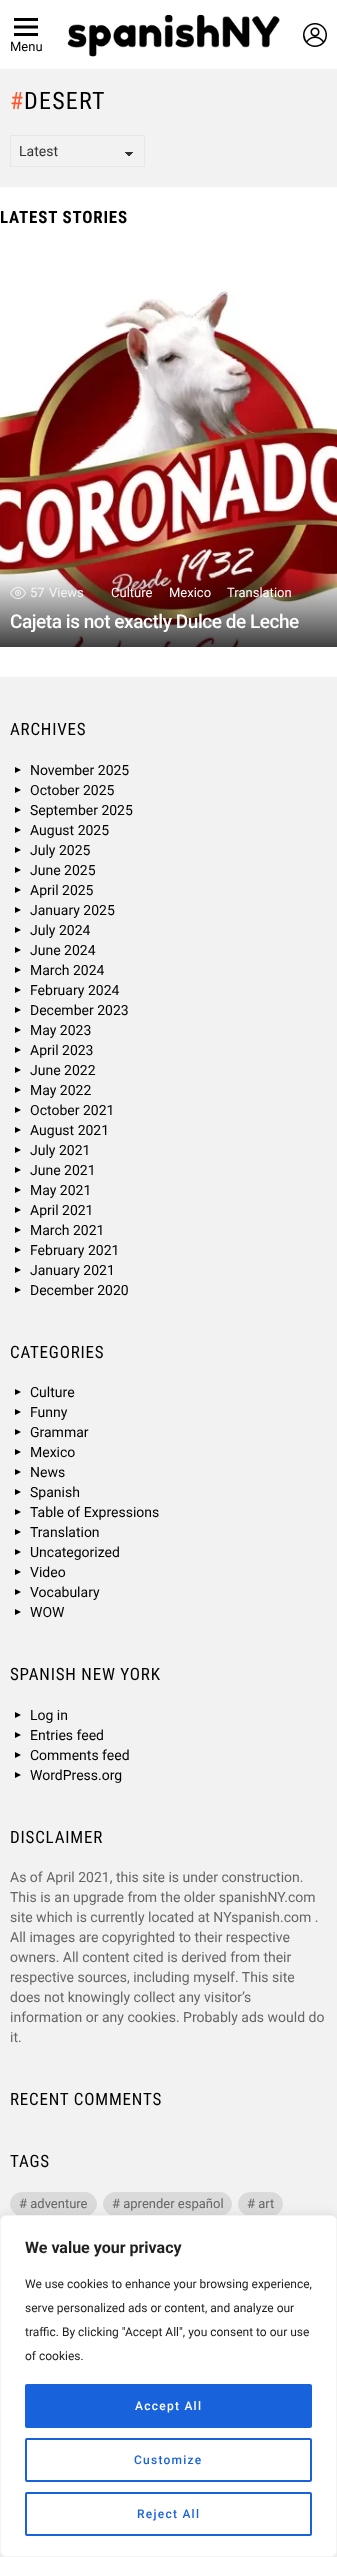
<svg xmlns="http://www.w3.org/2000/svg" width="337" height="2557">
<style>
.a{font:13px Roboto;fill:#000}
.b{font:24px Roboto Condensed;letter-spacing:1.25px;fill:#ff552e}
.c{font:24px Roboto Condensed;letter-spacing:1.25px;fill:#000}
.d{font:14px Roboto;fill:#333}
.e{font:bold 17px Roboto Condensed;letter-spacing:0.8px;fill:#000}
.f{font:13px Roboto;fill:#f4f4f4}
.g{font:13px Roboto;fill:#fff}
.h{font:500 19px Roboto;letter-spacing:-0.45px;fill:#fff}
.i{font:17px Roboto Condensed;letter-spacing:0.8px;fill:#000}
.j{font:14px Roboto;fill:#000}
.k{font:14px Roboto;fill:#666}
.l{font:13px Roboto;fill:#666}
.m{font:bold 16px Roboto;fill:#212121}
.n{font:12px Roboto;fill:#212121}
.o{font:500 12px Roboto;letter-spacing:1.25px;fill:#fff}
.p{font:500 12px Roboto;letter-spacing:1.25px;fill:#1863dc}
</style>
<defs>
<linearGradient id="g1" gradientUnits="userSpaceOnUse" x1="129" y1="152" x2="134" y2="156"><stop offset="0.5" stop-color="#333"/><stop offset="0.5" stop-color="#f2f2f2"/></linearGradient>
<linearGradient id="g2" gradientUnits="userSpaceOnUse" x1="124" y1="156" x2="129" y2="152"><stop offset="0.5" stop-color="#f2f2f2"/><stop offset="0.5" stop-color="#333"/></linearGradient>
</defs>
<rect width="100%" height="100%" fill="#fff"/>
<image href="1.png" x="14" y="18" width="24" height="18"/>
<image href="2.png" x="67" y="14" width="213" height="43"/>
<image href="3.png" x="303" y="23" width="24" height="24"/>
<path fill="#f2f2f2" d="M0 69h337v118H0z"/>
<path fill="url(#g1)" d="M129 152h5v4H129z"/>
<path fill="url(#g2)" d="M124 152h5v4H124z"/>
<path fill="none" stroke="#e6e6e6" d="M10.5 135.5h134v31H10.5z"/>
<image href="4.png" x="0" y="247" width="337" height="400"/>
<image href="5.png" x="10" y="587" width="16" height="12"/>
<path fill="#f2f2f2" d="M0 677h337v1880H0z"/>
<path fill="#000" d="M21 770l-6-3v6z"/>
<path fill="#000" d="M21 790l-6-3v6z"/>
<path fill="#000" d="M21 810l-6-3v6z"/>
<path fill="#000" d="M21 830l-6-3v6z"/>
<path fill="#000" d="M21 850l-6-3v6z"/>
<path fill="#000" d="M21 870l-6-3v6z"/>
<path fill="#000" d="M21 890l-6-3v6z"/>
<path fill="#000" d="M21 910l-6-3v6z"/>
<path fill="#000" d="M21 930l-6-3v6z"/>
<path fill="#000" d="M21 950l-6-3v6z"/>
<path fill="#000" d="M21 970l-6-3v6z"/>
<path fill="#000" d="M21 990l-6-3v6z"/>
<path fill="#000" d="M21 1010l-6-3v6z"/>
<path fill="#000" d="M21 1030l-6-3v6z"/>
<path fill="#000" d="M21 1050l-6-3v6z"/>
<path fill="#000" d="M21 1070l-6-3v6z"/>
<path fill="#000" d="M21 1090l-6-3v6z"/>
<path fill="#000" d="M21 1110l-6-3v6z"/>
<path fill="#000" d="M21 1130l-6-3v6z"/>
<path fill="#000" d="M21 1150l-6-3v6z"/>
<path fill="#000" d="M21 1170l-6-3v6z"/>
<path fill="#000" d="M21 1190l-6-3v6z"/>
<path fill="#000" d="M21 1210l-6-3v6z"/>
<path fill="#000" d="M21 1230l-6-3v6z"/>
<path fill="#000" d="M21 1250l-6-3v6z"/>
<path fill="#000" d="M21 1270l-6-3v6z"/>
<path fill="#000" d="M21 1290l-6-3v6z"/>
<path fill="#000" d="M21 1392l-6-3v6z"/>
<path fill="#000" d="M21 1412l-6-3v6z"/>
<path fill="#000" d="M21 1432l-6-3v6z"/>
<path fill="#000" d="M21 1452l-6-3v6z"/>
<path fill="#000" d="M21 1472l-6-3v6z"/>
<path fill="#000" d="M21 1492l-6-3v6z"/>
<path fill="#000" d="M21 1512l-6-3v6z"/>
<path fill="#000" d="M21 1532l-6-3v6z"/>
<path fill="#000" d="M21 1552l-6-3v6z"/>
<path fill="#000" d="M21 1572l-6-3v6z"/>
<path fill="#000" d="M21 1592l-6-3v6z"/>
<path fill="#000" d="M21 1612l-6-3v6z"/>
<path fill="#000" d="M21 1715l-6-3v6z"/>
<path fill="#000" d="M21 1735l-6-3v6z"/>
<path fill="#000" d="M21 1755l-6-3v6z"/>
<path fill="#000" d="M21 1775l-6-3v6z"/>
<text class="a" x="10" y="51">Menu</text>
<text class="b" x="10" y="109">#</text>
<text class="c" x="24" y="109">DESERT</text>
<text class="d" x="19" y="156">Latest</text>
<text class="e" x="0" y="223">LATEST STORIES</text>
<text class="f" x="30" y="597">57</text>
<text class="f" x="49" y="597">Views</text>
<text class="g" x="111" y="597">Culture</text>
<text class="g" x="169" y="597">Mexico</text>
<text class="g" x="227" y="597">Translation</text>
<text class="h" x="10" y="628">Cajeta is not exactly Dulce de Leche</text>
<text class="i" x="10" y="735">ARCHIVES</text>
<text class="j" x="30" y="775">November 2025</text>
<text class="j" x="30" y="795">October 2025</text>
<text class="j" x="30" y="815">September 2025</text>
<text class="j" x="30" y="835">August 2025</text>
<text class="j" x="30" y="855">July 2025</text>
<text class="j" x="30" y="875">June 2025</text>
<text class="j" x="30" y="895">April 2025</text>
<text class="j" x="30" y="915">January 2025</text>
<text class="j" x="30" y="935">July 2024</text>
<text class="j" x="30" y="955">June 2024</text>
<text class="j" x="30" y="975">March 2024</text>
<text class="j" x="30" y="995">February 2024</text>
<text class="j" x="30" y="1015">December 2023</text>
<text class="j" x="30" y="1035">May 2023</text>
<text class="j" x="30" y="1055">April 2023</text>
<text class="j" x="30" y="1075">June 2022</text>
<text class="j" x="30" y="1095">May 2022</text>
<text class="j" x="30" y="1115">October 2021</text>
<text class="j" x="30" y="1135">August 2021</text>
<text class="j" x="30" y="1155">July 2021</text>
<text class="j" x="30" y="1175">June 2021</text>
<text class="j" x="30" y="1195">May 2021</text>
<text class="j" x="30" y="1215">April 2021</text>
<text class="j" x="30" y="1235">March 2021</text>
<text class="j" x="30" y="1255">February 2021</text>
<text class="j" x="30" y="1275">January 2021</text>
<text class="j" x="30" y="1295">December 2020</text>
<text class="i" x="10" y="1358">CATEGORIES</text>
<text class="j" x="30" y="1397">Culture</text>
<text class="j" x="30" y="1417">Funny</text>
<text class="j" x="30" y="1437">Grammar</text>
<text class="j" x="30" y="1457">Mexico</text>
<text class="j" x="30" y="1477">News</text>
<text class="j" x="30" y="1497">Spanish</text>
<text class="j" x="30" y="1517">Table of Expressions</text>
<text class="j" x="30" y="1537">Translation</text>
<text class="j" x="30" y="1557">Uncategorized</text>
<text class="j" x="30" y="1577">Video</text>
<text class="j" x="30" y="1597">Vocabulary</text>
<text class="j" x="30" y="1617">WOW</text>
<text class="i" x="10" y="1680">SPANISH NEW YORK</text>
<text class="j" x="30" y="1720">Log in</text>
<text class="j" x="30" y="1740">Entries feed</text>
<text class="j" x="30" y="1760">Comments feed</text>
<text class="j" x="30" y="1780">WordPress.org</text>
<text class="i" x="10" y="1843">DISCLAIMER</text>
<text class="k" x="10" y="1882">As of April 2021, this site is under construction.</text>
<text class="k" x="10" y="1902">This is an upgrade from the older spanishNY.com</text>
<text class="k" x="10" y="1922">site which is currently located at NYspanish.com .</text>
<text class="k" x="10" y="1942">All images are copyrighted to their respective</text>
<text class="k" x="10" y="1962">owners. All content cited is derived from their</text>
<text class="k" x="10" y="1982">respective sources, including myself. This site</text>
<text class="k" x="10" y="2002">does not knowingly collect any visitor’s</text>
<text class="k" x="10" y="2022">information or any cookies. Probably ads would do</text>
<text class="k" x="10" y="2042">it.</text>
<text class="i" x="10" y="2105">RECENT COMMENTS</text>
<text class="i" x="10" y="2167">TAGS</text>
<text class="l" x="19" y="2208"># adventure</text>
<rect fill="#6666662b" stroke="#dbdbdb" x="10.5" y="2192.5" width="86" height="23" rx="11.5"/>
<text class="l" x="112" y="2208"># aprender español</text>
<rect fill="#6666662b" stroke="#dbdbdb" x="103.5" y="2192.5" width="128" height="23" rx="11.5"/>
<text class="l" x="247" y="2208"># art</text>
<rect fill="#6666662b" stroke="#dbdbdb" x="238.5" y="2192.5" width="44" height="23" rx="11.5"/>
<rect fill="#acabab4d" filter="blur(5px)" y="2214" width="337" height="342" rx="6"/>
<rect fill="#fff" stroke="#f4f4f4" x="0.5" y="2215.5" width="336" height="341" rx="5.5"/>
<text class="m" x="25" y="2253">We value your privacy</text>
<text class="n" x="25" y="2288">We use cookies to enhance your browsing experience,</text>
<text class="n" x="25" y="2312">serve personalized ads or content, and analyze our</text>
<text class="n" x="25" y="2336">traffic. By clicking "Accept All", you consent to our use</text>
<text class="n" x="25" y="2360">of cookies.</text>
<rect fill="#1863dc" stroke="#1863dc" stroke-width="2" x="26" y="2385" width="285" height="42" rx="1"/>
<text class="o" x="135" y="2410">Accept All</text>
<rect fill="none" stroke="#1863dc" stroke-width="2" x="26" y="2439" width="285" height="42" rx="1"/>
<text class="p" x="134" y="2464">Customize</text>
<rect fill="none" stroke="#1863dc" stroke-width="2" x="26" y="2493" width="285" height="42" rx="1"/>
<text class="p" x="137" y="2518">Reject All</text>
</svg>
